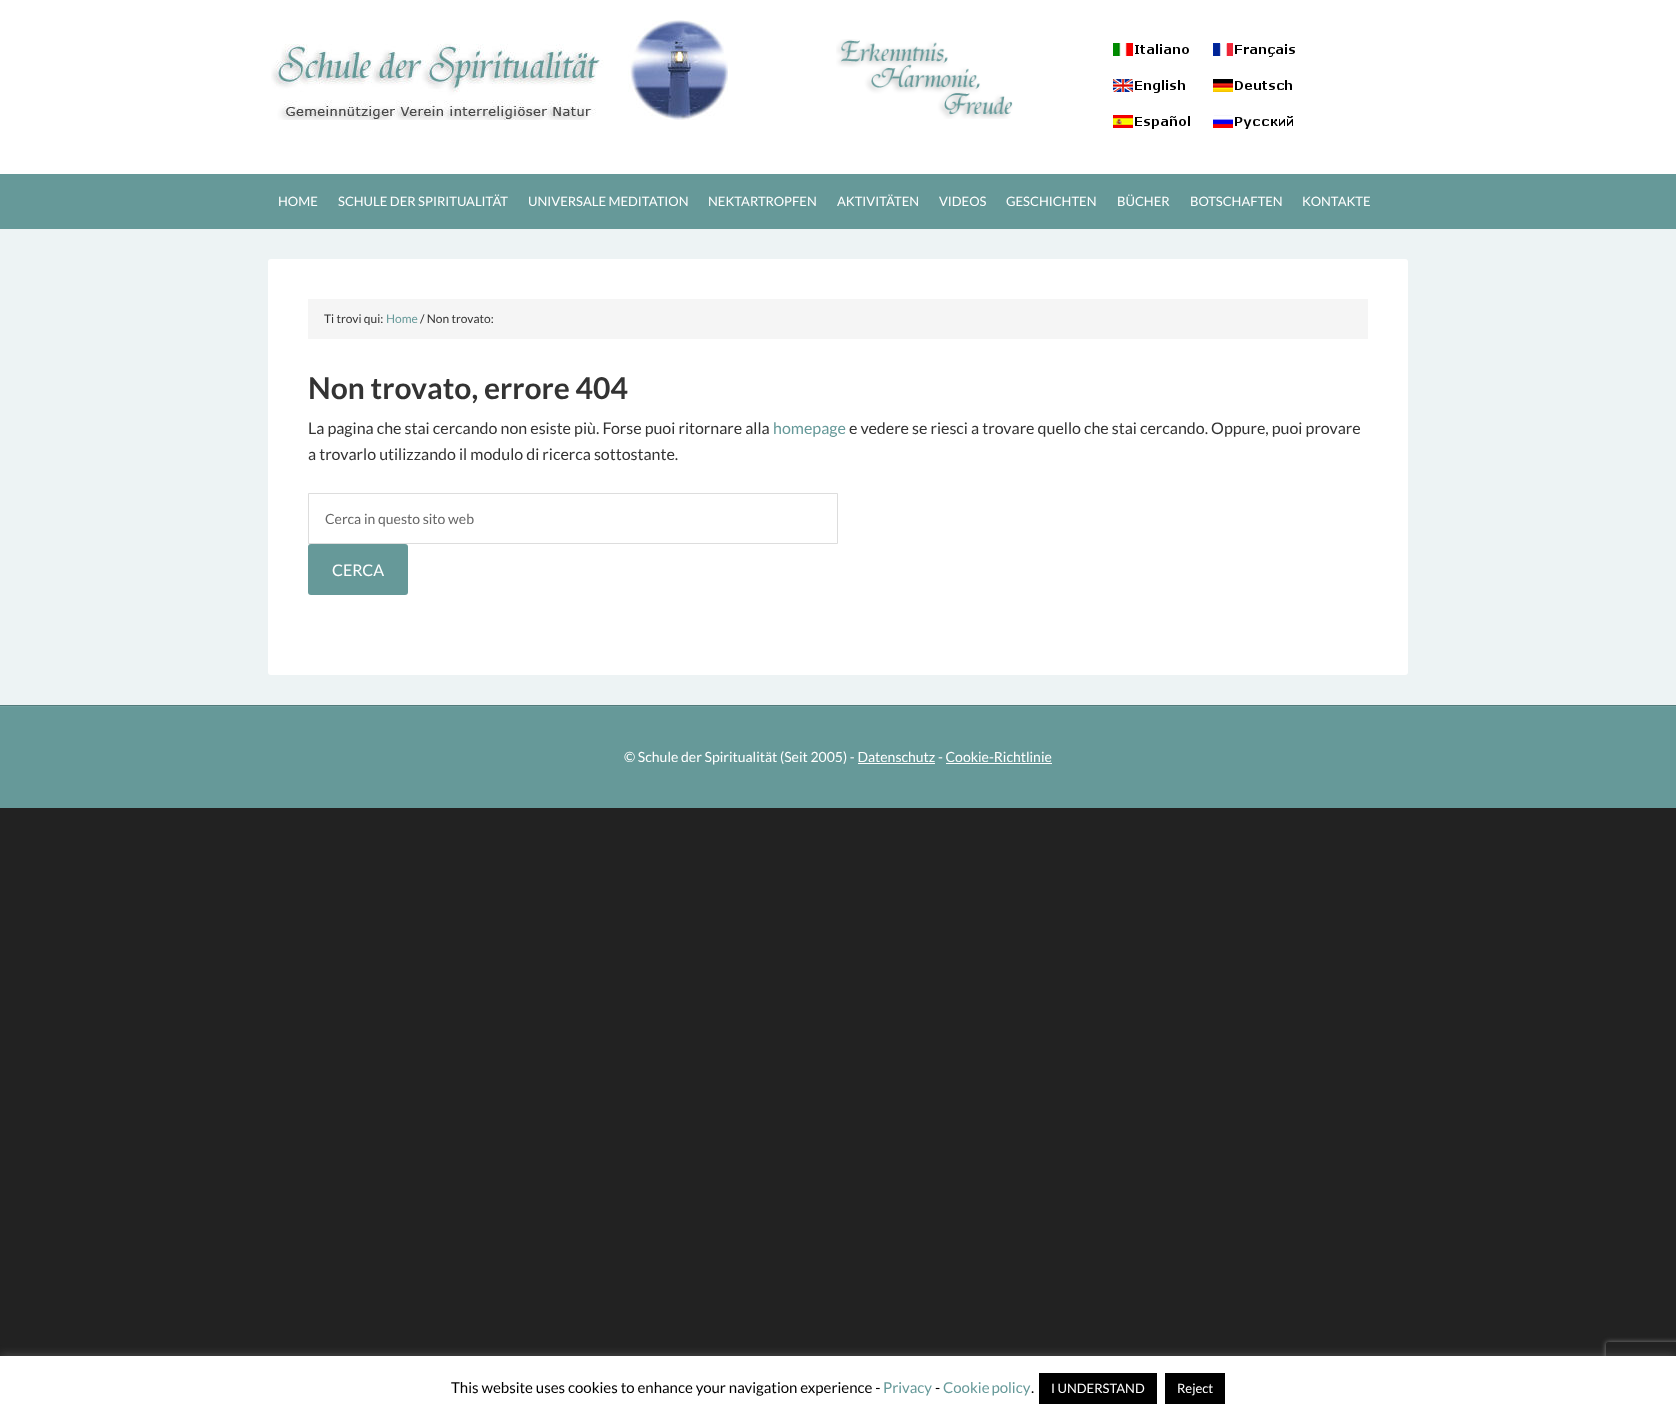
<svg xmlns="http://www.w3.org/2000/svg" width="1676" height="1416">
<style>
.a{font:13px Lato;fill:#fff}
.b{font:12px Lato;fill:#333}
.c{font:12px Lato;fill:#699}
.d{font:bold 30px Lato;fill:#333}
.e{font:16px Lato;fill:#333}
.f{font:16px Lato;fill:#699}
.g{font:14px Lato;fill:#666}
.h{font:16px Lato;fill:#fff}
.i{font:14px Lato;fill:#fff}
.j{font:15px Lato;fill:#000}
.k{font:15px Lato;fill:#699}
</style>
<defs>
<clipPath id="clip1"><path d="M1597 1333h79v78h-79zm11 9h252c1 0 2 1 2 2v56c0 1-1 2-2 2h-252c-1 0-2-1-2-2v-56c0-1 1-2 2-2z" clip-rule="evenodd"/></clipPath>
</defs>
<rect width="100%" height="100%" fill="#222"/>
<path fill="#fff" d="M0 0h1676v174H0z"/>
<image href="1.png" x="271" y="20" width="457" height="100"/>
<image href="2.png" x="836" y="39" width="177" height="80"/>
<image href="3.png" x="1113" y="43" width="76" height="13"/>
<image href="4.png" x="1113" y="79" width="72" height="14"/>
<image href="5.png" x="1113" y="115" width="77" height="14"/>
<image href="6.png" x="1213" y="43" width="82" height="14"/>
<image href="7.png" x="1213" y="79" width="79" height="13"/>
<image href="8.png" x="1213" y="115" width="80" height="14"/>
<path fill="#699" d="M0 174h1676v55H0z"/>
<path fill="#edf3f4" d="M0 229h1676v476H0z"/>
<rect fill="#fff" x="268" y="259" width="1140" height="416" rx="3"/>
<path fill="#f5f5f5" d="M308 299h1060v40H308z"/>
<path fill="none" stroke="#ddd" d="M308.5 493.5h529v50H308.5z"/>
<rect fill="#699" x="308" y="544" width="100" height="51" rx="3"/>
<path fill="#699" d="M0 707h1676v101H0z"/>
<path fill="#71a0a0" d="M0 706h1676v1H0z"/>
<path fill="#527a7a" d="M0 705h1676v1H0z"/>
<path fill="#fff" d="M858 763h77v1H858z"/>
<path fill="#fff" d="M946 763h106v1H946z"/>
<path fill="#acabab4d" filter="blur(5px)" d="M0 1355h1676v60H0z"/>
<g clip-path="url(#clip1)">
<rect fill="#808080" filter="blur(2.5px)" x="1606" y="1342" width="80" height="60" rx="2"/>
</g>
<path fill="#fff" d="M0 1356h1676v60H0z"/>
<path fill="#000" d="M1039 1373h118v31H1039z"/>
<path fill="#000" d="M1165 1373h60v31H1165z"/>
<text class="a" x="278" y="206">HOME</text>
<text class="a" x="338" y="206">SCHULE DER SPIRITUALITÄT</text>
<text class="a" x="528" y="206">UNIVERSALE MEDITATION</text>
<text class="a" x="708" y="206">NEKTARTROPFEN</text>
<text class="a" x="837" y="206">AKTIVITÄTEN</text>
<text class="a" x="939" y="206">VIDEOS</text>
<text class="a" x="1006" y="206">GESCHICHTEN</text>
<text class="a" x="1117" y="206">BÜCHER</text>
<text class="a" x="1190" y="206">BOTSCHAFTEN</text>
<text class="a" x="1302" y="206">KONTAKTE</text>
<text class="b" x="324" y="323">Ti trovi qui:</text>
<text class="c" x="386" y="323">Home</text>
<text class="b" x="420" y="323">/ Non trovato:</text>
<text class="d" x="308" y="399">Non trovato, errore 404</text>
<text class="e" x="308" y="434">La pagina che stai cercando non esiste più. Forse puoi ritornare alla</text>
<text class="f" x="773" y="434">homepage</text>
<text class="e" x="849" y="434">e vedere se riesci a trovare quello che stai cercando. Oppure, puoi provare</text>
<text class="e" x="308" y="460">a trovarlo utilizzando il modulo di ricerca sottostante.</text>
<text class="g" x="325" y="524">Cerca in questo sito web</text>
<text class="h" x="332" y="576">CERCA</text>
<text class="i" x="624" y="762">© Schule der Spiritualität (Seit 2005) - Datenschutz - Cookie-Richtlinie</text>
<text class="j" x="451" y="1393">This website uses cookies to enhance your navigation experience -</text>
<text class="k" x="883" y="1393">Privacy</text>
<text class="j" x="935" y="1393">-</text>
<text class="k" x="943" y="1393" word-spacing="-1">Cookie policy</text>
<text class="a" x="1051" y="1393">I UNDERSTAND</text>
<text class="a" x="1177" y="1393">Reject</text>
<text class="j" x="1031" y="1393">.</text>
</svg>
